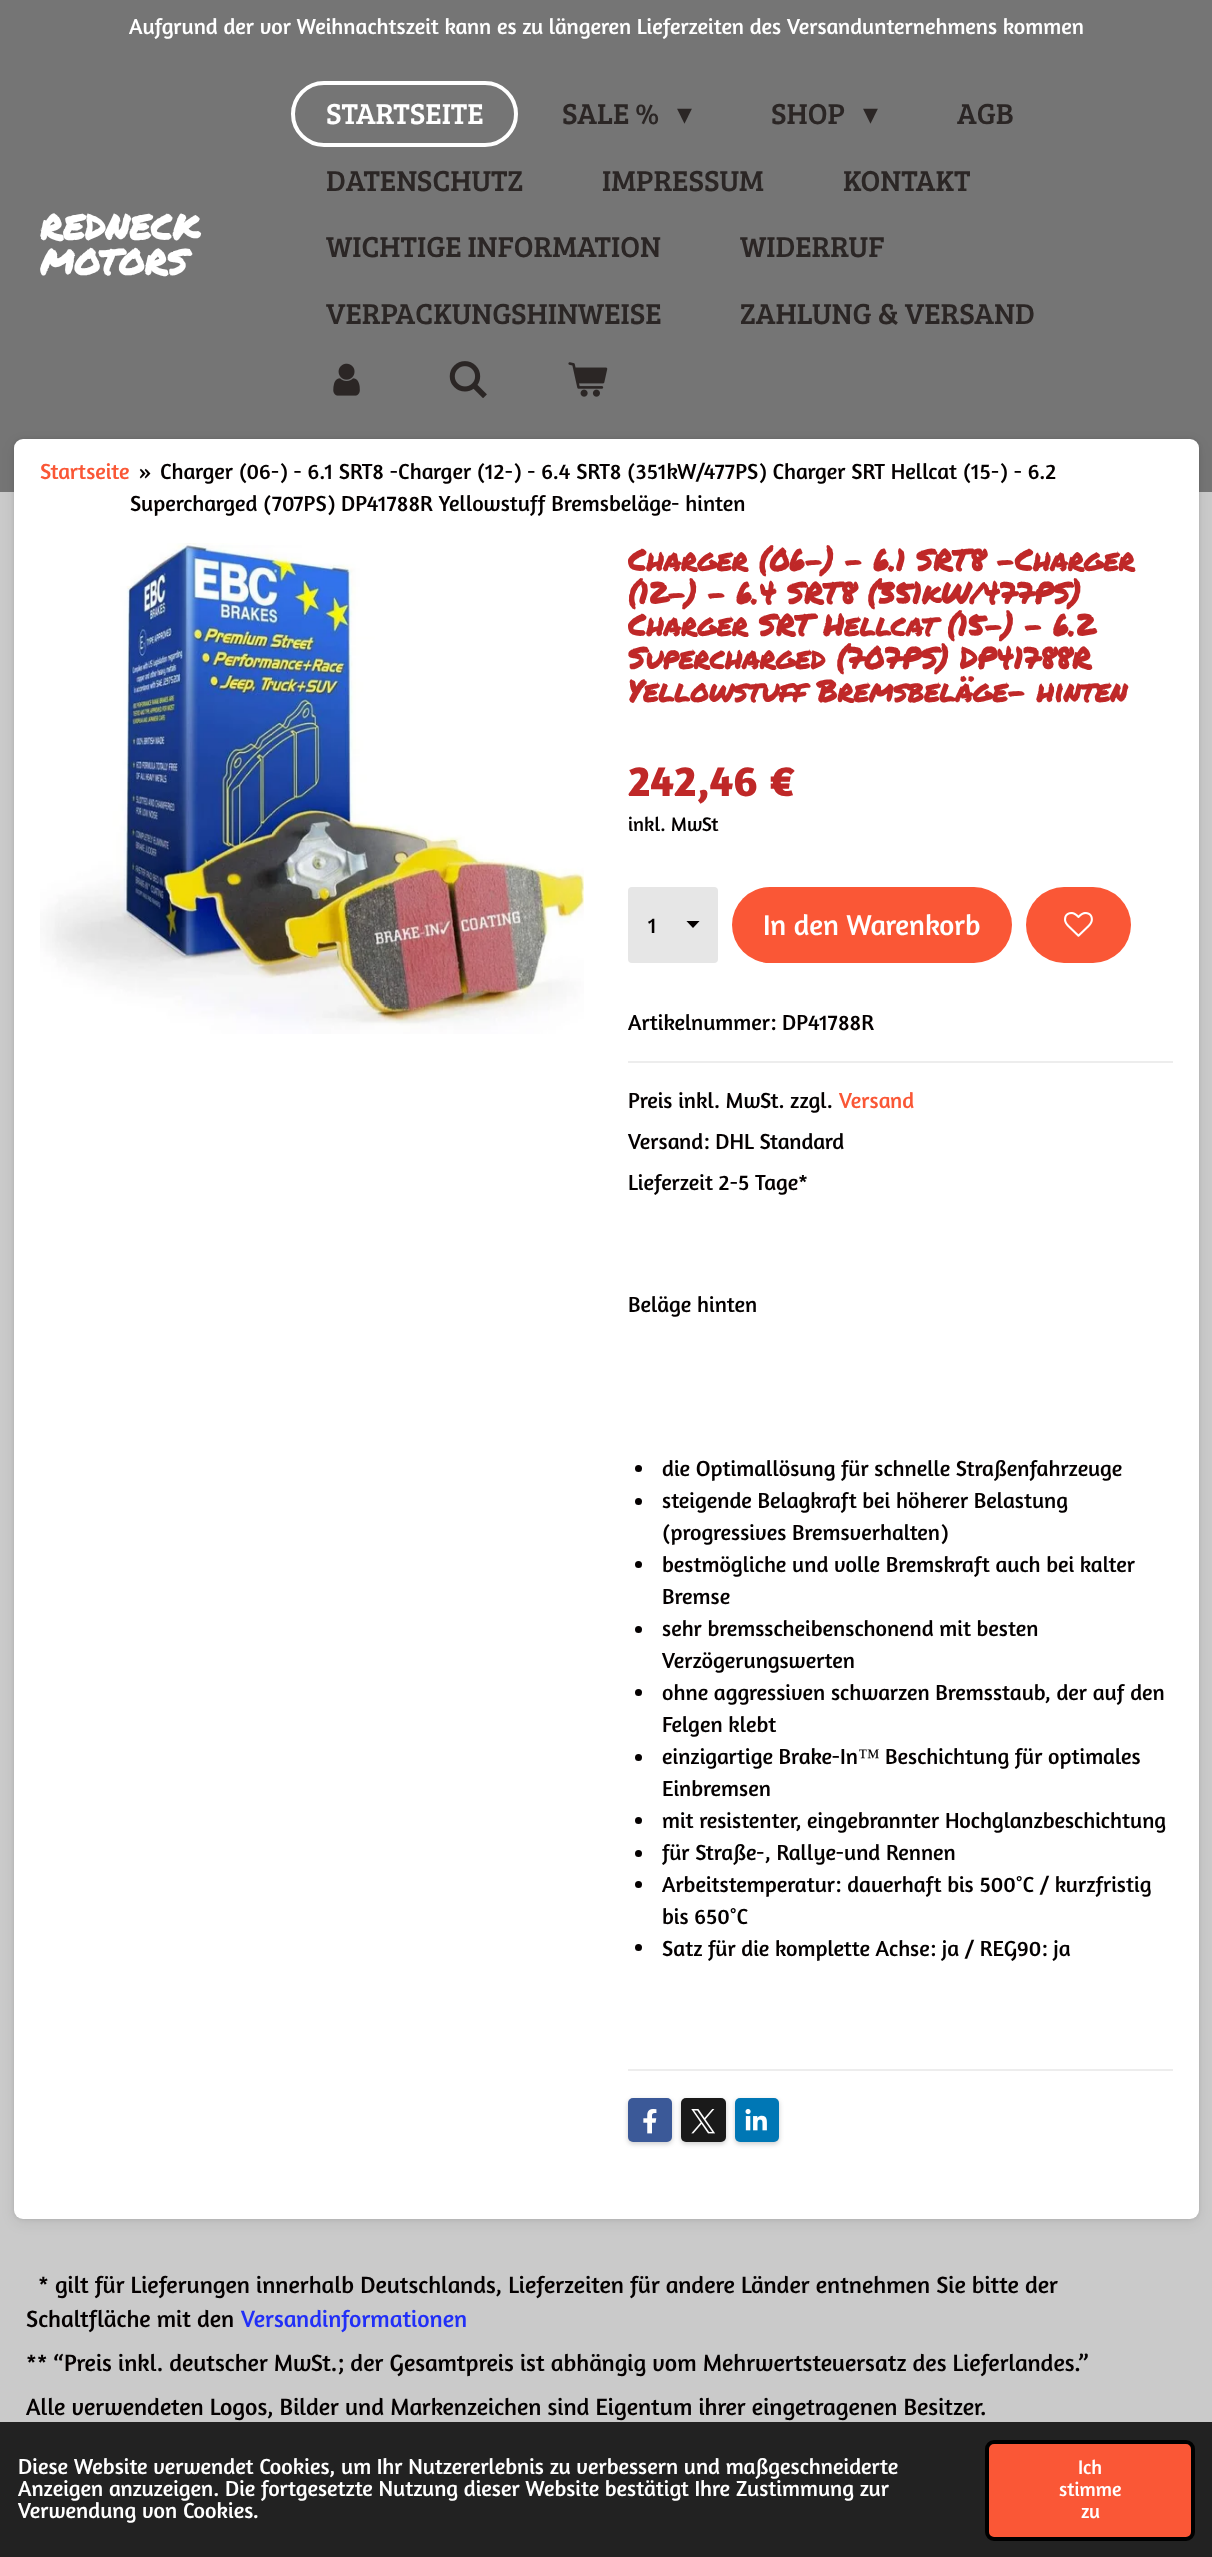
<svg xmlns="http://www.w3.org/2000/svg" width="1212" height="2557">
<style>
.a{font:22.2px Amaranth;fill:#fff}
.b{font:bold 35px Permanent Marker;fill:#fff}
.c{font:29.75px Bree Serif;fill:#fff}
.d{font:29.75px Bree Serif;fill:#2b2625}
.e{font:29.75px DejaVu Sans;fill:#2b2625}
.f{font:22.2px Amaranth;fill:#fa5736}
.g{font:22.2px Amaranth;fill:#040000}
.h{font:bold 29.75px Permanent Marker;fill:#bf2828}
.i{font:bold 44.5px Amaranth;fill:#bf2828}
.j{font:20px Amaranth;fill:#040000}
.k{font:29px Amaranth;fill:#fff}
.l{font:22.2px Liberation Serif;fill:#040000}
.m{font:23.95px Amaranth;fill:#040000}
.n{font:23.95px Amaranth;fill:#212ff7}
.o{font:20px Amaranth;fill:#fff}
</style>
<defs>
<clipPath id="clip1"><path d="M686 921h14v8H686z"/></clipPath>
</defs>
<rect width="100%" height="100%" fill="#cacaca"/>
<path fill="#757575" d="M0 0h1212v492H0z"/>
<rect fill="none" stroke="#fff" stroke-width="4" x="293" y="83" width="223" height="62" rx="31"/>
<image href="1.png" x="333" y="363" width="27" height="33"/>
<image href="2.png" x="449" y="361" width="38" height="37"/>
<image href="3.png" x="568" y="362" width="40" height="35"/>
<rect fill="#0000001a" filter="blur(2px)" x="14" y="439" width="1185" height="1780" rx="9"/>
<rect fill="#00000012" filter="blur(7px)" x="14" y="443" width="1185" height="1780" rx="9"/>
<rect fill="#fff" x="14" y="439" width="1185" height="1780" rx="9"/>
<image href="4.png" x="40" y="543" width="544" height="491"/>
<rect fill="#e6e6e6" x="628" y="887" width="90" height="76" rx="4"/>
<g clip-path="url(#clip1)">
<path fill="#040000" d="M693 928l-7-7.5h14z"/>
</g>
<rect fill="#fa5736" x="732" y="887" width="280" height="76" rx="38"/>
<rect fill="#fa5736" x="1026" y="887" width="105" height="76" rx="38"/>
<image href="5.png" x="1064" y="912" width="29" height="25"/>
<path fill="#ededed" d="M628 1061h545v2H628z"/>
<circle fill="#040000" cx="638.5" cy="1468.5" r="3.5"/>
<circle fill="#040000" cx="638.5" cy="1501.5" r="3.5"/>
<circle fill="#040000" cx="638.5" cy="1564.5" r="3.5"/>
<circle fill="#040000" cx="638.5" cy="1629.5" r="3.5"/>
<circle fill="#040000" cx="638.5" cy="1692.5" r="3.5"/>
<circle fill="#040000" cx="638.5" cy="1757.5" r="3.5"/>
<circle fill="#040000" cx="638.5" cy="1820.5" r="3.5"/>
<circle fill="#040000" cx="638.5" cy="1853.5" r="3.5"/>
<circle fill="#040000" cx="638.5" cy="1884.5" r="3.5"/>
<circle fill="#040000" cx="638.5" cy="1947.5" r="3.5"/>
<path fill="#ededed" d="M628 2069h545v2H628z"/>
<rect fill="#00000033" filter="blur(2.5px)" x="628" y="2100" width="44" height="44" rx="5"/>
<rect fill="#3b5998" x="628" y="2098" width="44" height="44" rx="5"/>
<image href="6.png" x="643" y="2109" width="14" height="25"/>
<rect fill="#00000033" filter="blur(2.5px)" x="681" y="2100" width="45" height="44" rx="5"/>
<rect fill="#1a1a1a" x="681" y="2098" width="45" height="44" rx="5"/>
<image href="7.png" x="691" y="2109" width="24" height="25"/>
<rect fill="#00000033" filter="blur(2.5px)" x="735" y="2100" width="44" height="44" rx="5"/>
<rect fill="#0077b5" x="735" y="2098" width="44" height="44" rx="5"/>
<image href="8.png" x="745" y="2109" width="22" height="22"/>
<path fill="#222" d="M0 2422h1212v135H0z"/>
<rect fill="#fa5736" stroke="#000" stroke-width="4" x="987" y="2442" width="206" height="97" rx="7"/>
<text class="a" x="129" y="34">Aufgrund der vor Weihnachtszeit kann es zu längeren Lieferzeiten des Versandunternehmens kommen</text>
<text class="b" x="40" y="240">REDNECK</text>
<text class="b" x="40" y="275">MOTORS</text>
<text class="c" x="326" y="124">STARTSEITE</text>
<text class="d" x="562" y="124">SALE %</text>
<text class="e" x="677" y="124">▾</text>
<text class="d" x="771" y="124">SHOP</text>
<text class="e" x="863" y="124">▾</text>
<text class="d" x="957" y="124">AGB</text>
<text class="d" x="326" y="191">DATENSCHUTZ</text>
<text class="d" x="602" y="191">IMPRESSUM</text>
<text class="d" x="843" y="191">KONTAKT</text>
<text class="d" x="326" y="257">WICHTIGE INFORMATION</text>
<text class="d" x="740" y="257">WIDERRUF</text>
<text class="d" x="326" y="324">VERPACKUNGSHINWEISE</text>
<text class="d" x="740" y="324">ZAHLUNG &amp; VERSAND</text>
<text class="f" x="40" y="479">Startseite</text>
<text class="g" x="139" y="479">»</text>
<text class="g" x="160" y="479">Charger (06-) - 6.1 SRT8 -Charger (12-) - 6.4 SRT8 (351kW/477PS) Charger SRT Hellcat (15-) - 6.2</text>
<text class="g" x="130" y="511">Supercharged (707PS) DP41788R Yellowstuff Bremsbeläge- hinten</text>
<text class="h" x="628" y="571">Charger (06-) - 6.1 SRT8 -Charger</text>
<text class="h" x="628" y="604">(12-) - 6.4 SRT8 (351kW/477PS)</text>
<text class="h" x="628" y="636">Charger SRT Hellcat (15-) - 6.2</text>
<text class="h" x="628" y="669">Supercharged (707PS) DP41788R</text>
<text class="h" x="628" y="702">Yellowstuff Bremsbeläge- hinten</text>
<text class="i" x="628" y="796">242,46 €</text>
<text class="j" x="628" y="831">inkl. MwSt</text>
<text class="g" x="648" y="933">1</text>
<text class="k" x="763" y="935">In den Warenkorb</text>
<text class="g" x="628" y="1030">Artikelnummer: DP41788R</text>
<text class="g" x="628" y="1108">Preis inkl. MwSt. zzgl.</text>
<text class="f" x="839" y="1108">Versand</text>
<text class="g" x="628" y="1149">Versand: DHL Standard</text>
<text class="g" x="628" y="1190">Lieferzeit 2-5 Tage*</text>
<text class="g" x="628" y="1312">Beläge hinten</text>
<text class="g" x="662" y="1476">die Optimallösung für schnelle Straßenfahrzeuge</text>
<text class="g" x="662" y="1508">steigende Belagkraft bei höherer Belastung</text>
<text class="g" x="662" y="1540">(progressives Bremsverhalten)</text>
<text class="g" x="662" y="1572">bestmögliche und volle Bremskraft auch bei kalter</text>
<text class="g" x="662" y="1604">Bremse</text>
<text class="g" x="662" y="1636">sehr bremsscheibenschonend mit besten</text>
<text class="g" x="662" y="1668">Verzögerungswerten</text>
<text class="g" x="662" y="1700">ohne aggressiven schwarzen Bremsstaub, der auf den</text>
<text class="g" x="662" y="1732">Felgen klebt</text>
<text class="g" x="662" y="1764">einzigartige Brake-In</text>
<text class="l" x="858" y="1764">™</text>
<text class="g" x="885" y="1764">Beschichtung für optimales</text>
<text class="g" x="662" y="1796">Einbremsen</text>
<text class="g" x="662" y="1828">mit resistenter, eingebrannter Hochglanzbeschichtung</text>
<text class="g" x="662" y="1860">für Straße-, Rallye-und Rennen</text>
<text class="g" x="662" y="1892">Arbeitstemperatur: dauerhaft bis 500°C / kurzfristig</text>
<text class="g" x="662" y="1924">bis 650°C</text>
<text class="g" x="662" y="1956">Satz für die komplette Achse: ja / REG90: ja</text>
<text class="m" x="38" y="2293">* gilt für Lieferungen innerhalb Deutschlands, Lieferzeiten für andere Länder entnehmen Sie bitte der</text>
<text class="m" x="26" y="2327">Schaltfläche mit den</text>
<text class="n" x="241" y="2327">Versandinformationen</text>
<text class="m" x="26" y="2371">** “Preis inkl. deutscher MwSt.; der Gesamtpreis ist abhängig vom Mehrwertsteuersatz des Lieferlandes.”</text>
<text class="m" x="26" y="2415">Alle verwendeten Logos, Bilder und Markenzeichen sind Eigentum ihrer eingetragenen Besitzer.</text>
<text class="a" x="18" y="2474">Diese Website verwendet Cookies, um Ihr Nutzererlebnis zu verbessern und maßgeschneiderte</text>
<text class="a" x="18" y="2496">Anzeigen anzuzeigen. Die fortgesetzte Nutzung dieser Website bestätigt Ihre Zustimmung zur</text>
<text class="a" x="18" y="2518">Verwendung von Cookies.</text>
<text class="o" x="1078" y="2474">Ich</text>
<text class="o" x="1059" y="2496">stimme</text>
<text class="o" x="1081" y="2518">zu</text>
</svg>
